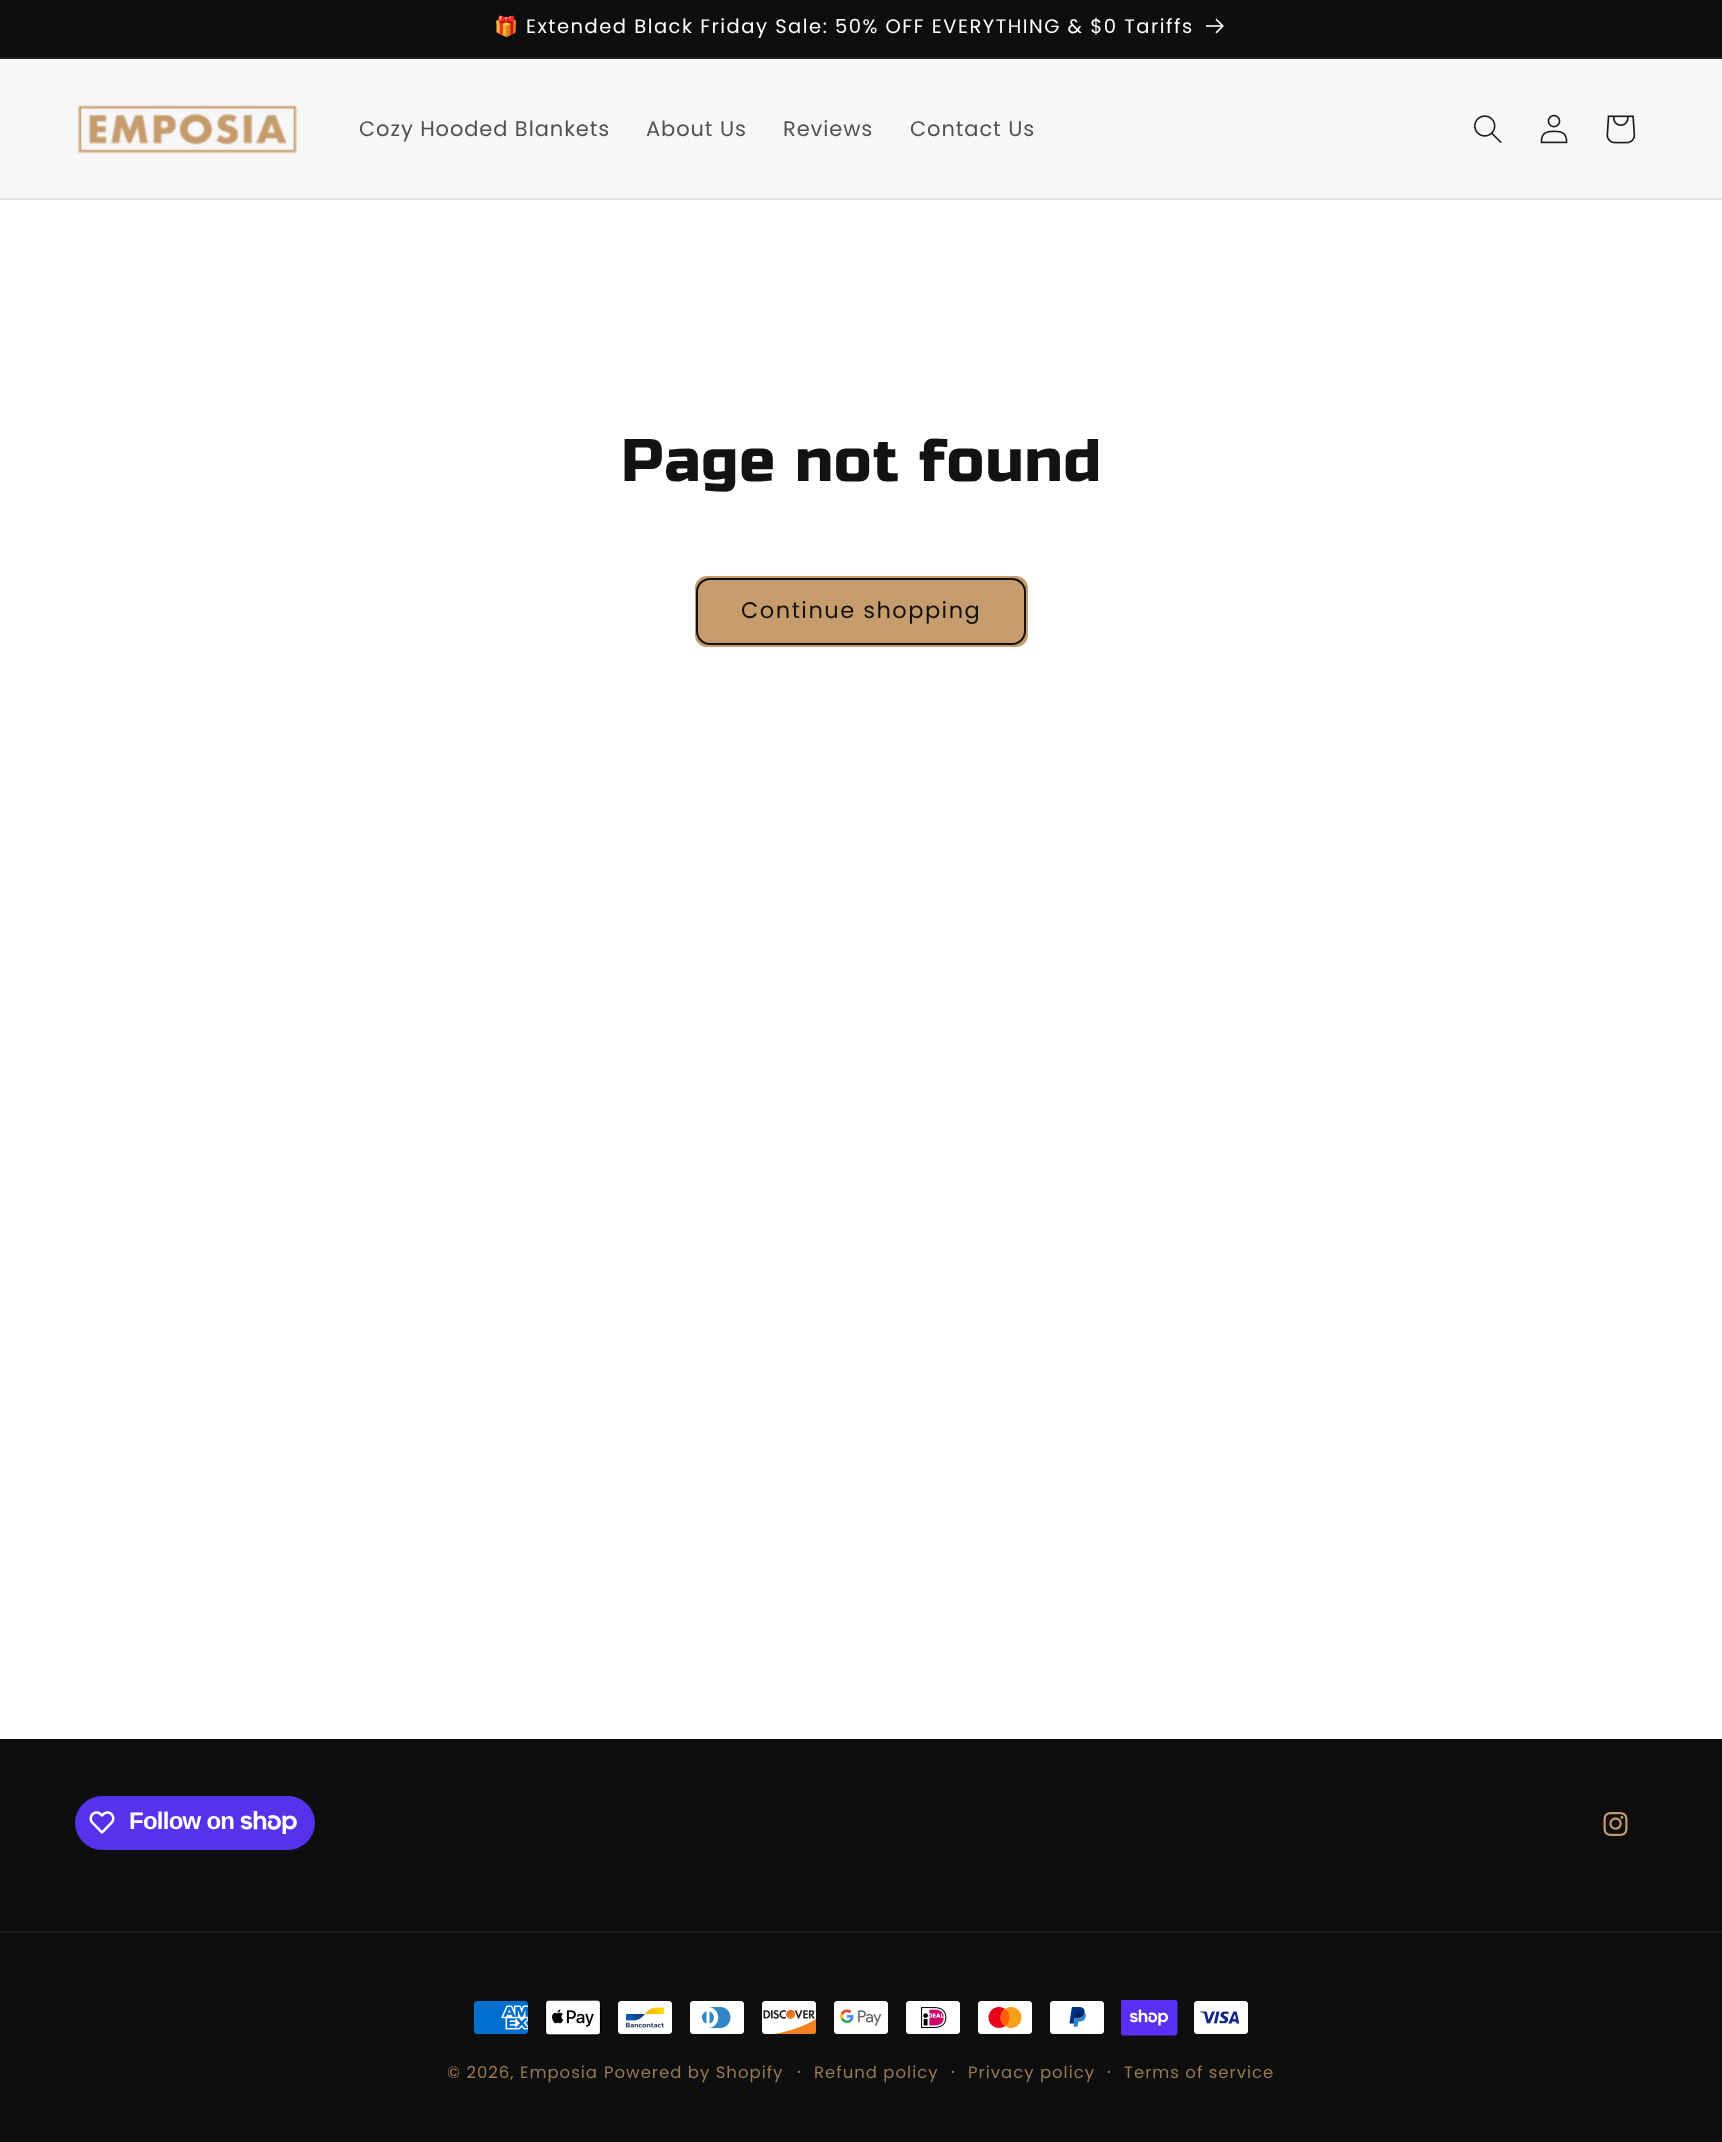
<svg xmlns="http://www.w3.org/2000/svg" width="1722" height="2142">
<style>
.a{font:19.5px Noto Color Emoji;letter-spacing:1.5px;fill:#fff}
.b{font:19.5px Poppins;letter-spacing:1.5px;fill:#fff}
.c{font:21px Poppins;letter-spacing:0.9px;fill:#515151}
.d{font:60px Russo One;letter-spacing:0.9px;fill:#121212}
.e{font:22.5px Poppins;letter-spacing:1.5px;fill:#121212}
.f{font:bold 24px Liberation Sans;letter-spacing:-0.75px;fill:#fff}
.g{font:16.5px Poppins;letter-spacing:1px;fill:#987955}
.h{font:18px Poppins;letter-spacing:1px;fill:#987955}
</style>
<rect width="100%" height="100%" fill="#fff"/>
<path fill="#0e0e0e" d="M0 0h1722v57H0z"/>
<path fill="#212121" d="M0 57h1722v2H0z"/>
<image href="1.png" x="1206" y="18" width="18" height="16"/>
<path fill="#f7f7f7" d="M0 59h1722v139H0z"/>
<path fill="#e5e5e5" d="M0 198h1722v2H0z"/>
<image href="2.png" x="77" y="104" width="221" height="50"/>
<image href="3.png" x="1474" y="115" width="28" height="28"/>
<image href="4.png" x="1540" y="114" width="28" height="30"/>
<image href="5.png" x="1606" y="115" width="30" height="29"/>
<rect fill="#c69c6c" stroke="#c69c6c" stroke-width="2" x="696" y="577" width="331" height="69" rx="11"/>
<rect fill="none" stroke="#121212" stroke-width="2" x="697" y="579" width="328" height="65" rx="13"/>
<path fill="#0e0e0e" d="M0 1739h1722v403H0z"/>
<rect fill="#5433eb" x="75" y="1796" width="240" height="54" rx="27"/>
<image href="6.png" x="89" y="1811" width="26" height="23"/>
<image href="7.png" x="240" y="1811" width="57" height="23"/>
<image href="8.png" x="1603" y="1812" width="25" height="24"/>
<path fill="#1d1916" d="M0 1931h1722v2H0z"/>
<image href="9.png" x="474" y="2001" width="54" height="33"/>
<image href="10.png" x="545" y="2000" width="56" height="36"/>
<image href="11.png" x="618" y="2001" width="54" height="33"/>
<image href="12.png" x="690" y="2001" width="54" height="33"/>
<image href="13.png" x="762" y="2001" width="55" height="33"/>
<image href="14.png" x="834" y="2001" width="54" height="33"/>
<image href="15.png" x="906" y="2001" width="54" height="33"/>
<image href="16.png" x="978" y="2001" width="54" height="33"/>
<image href="17.png" x="1050" y="2001" width="54" height="33"/>
<image href="18.png" x="1121" y="2000" width="57" height="36"/>
<image href="19.png" x="1194" y="2001" width="54" height="33"/>
<text class="a" x="494" y="33">🎁</text>
<text class="b" x="526" y="33">Extended Black Friday Sale: 50% OFF EVERYTHING &amp; $0 Tariffs</text>
<text class="c" x="359" y="136">Cozy Hooded Blankets</text>
<text class="c" x="646" y="136">About Us</text>
<text class="c" x="783" y="136">Reviews</text>
<text class="c" x="910" y="136">Contact Us</text>
<text class="d" x="621" y="481">Page not found</text>
<text class="e" x="741" y="618">Continue shopping</text>
<text class="f" x="129" y="1829">Follow on</text>
<text class="g" x="447" y="2078">© 2026, Emposia</text>
<text class="g" x="604" y="2078">Powered by Shopify</text>
<text class="h" x="797" y="2078">·</text>
<text class="g" x="814" y="2078">Refund policy</text>
<text class="h" x="951" y="2078">·</text>
<text class="g" x="968" y="2078">Privacy policy</text>
<text class="h" x="1107" y="2078">·</text>
<text class="g" x="1124" y="2078">Terms of service</text>
</svg>
